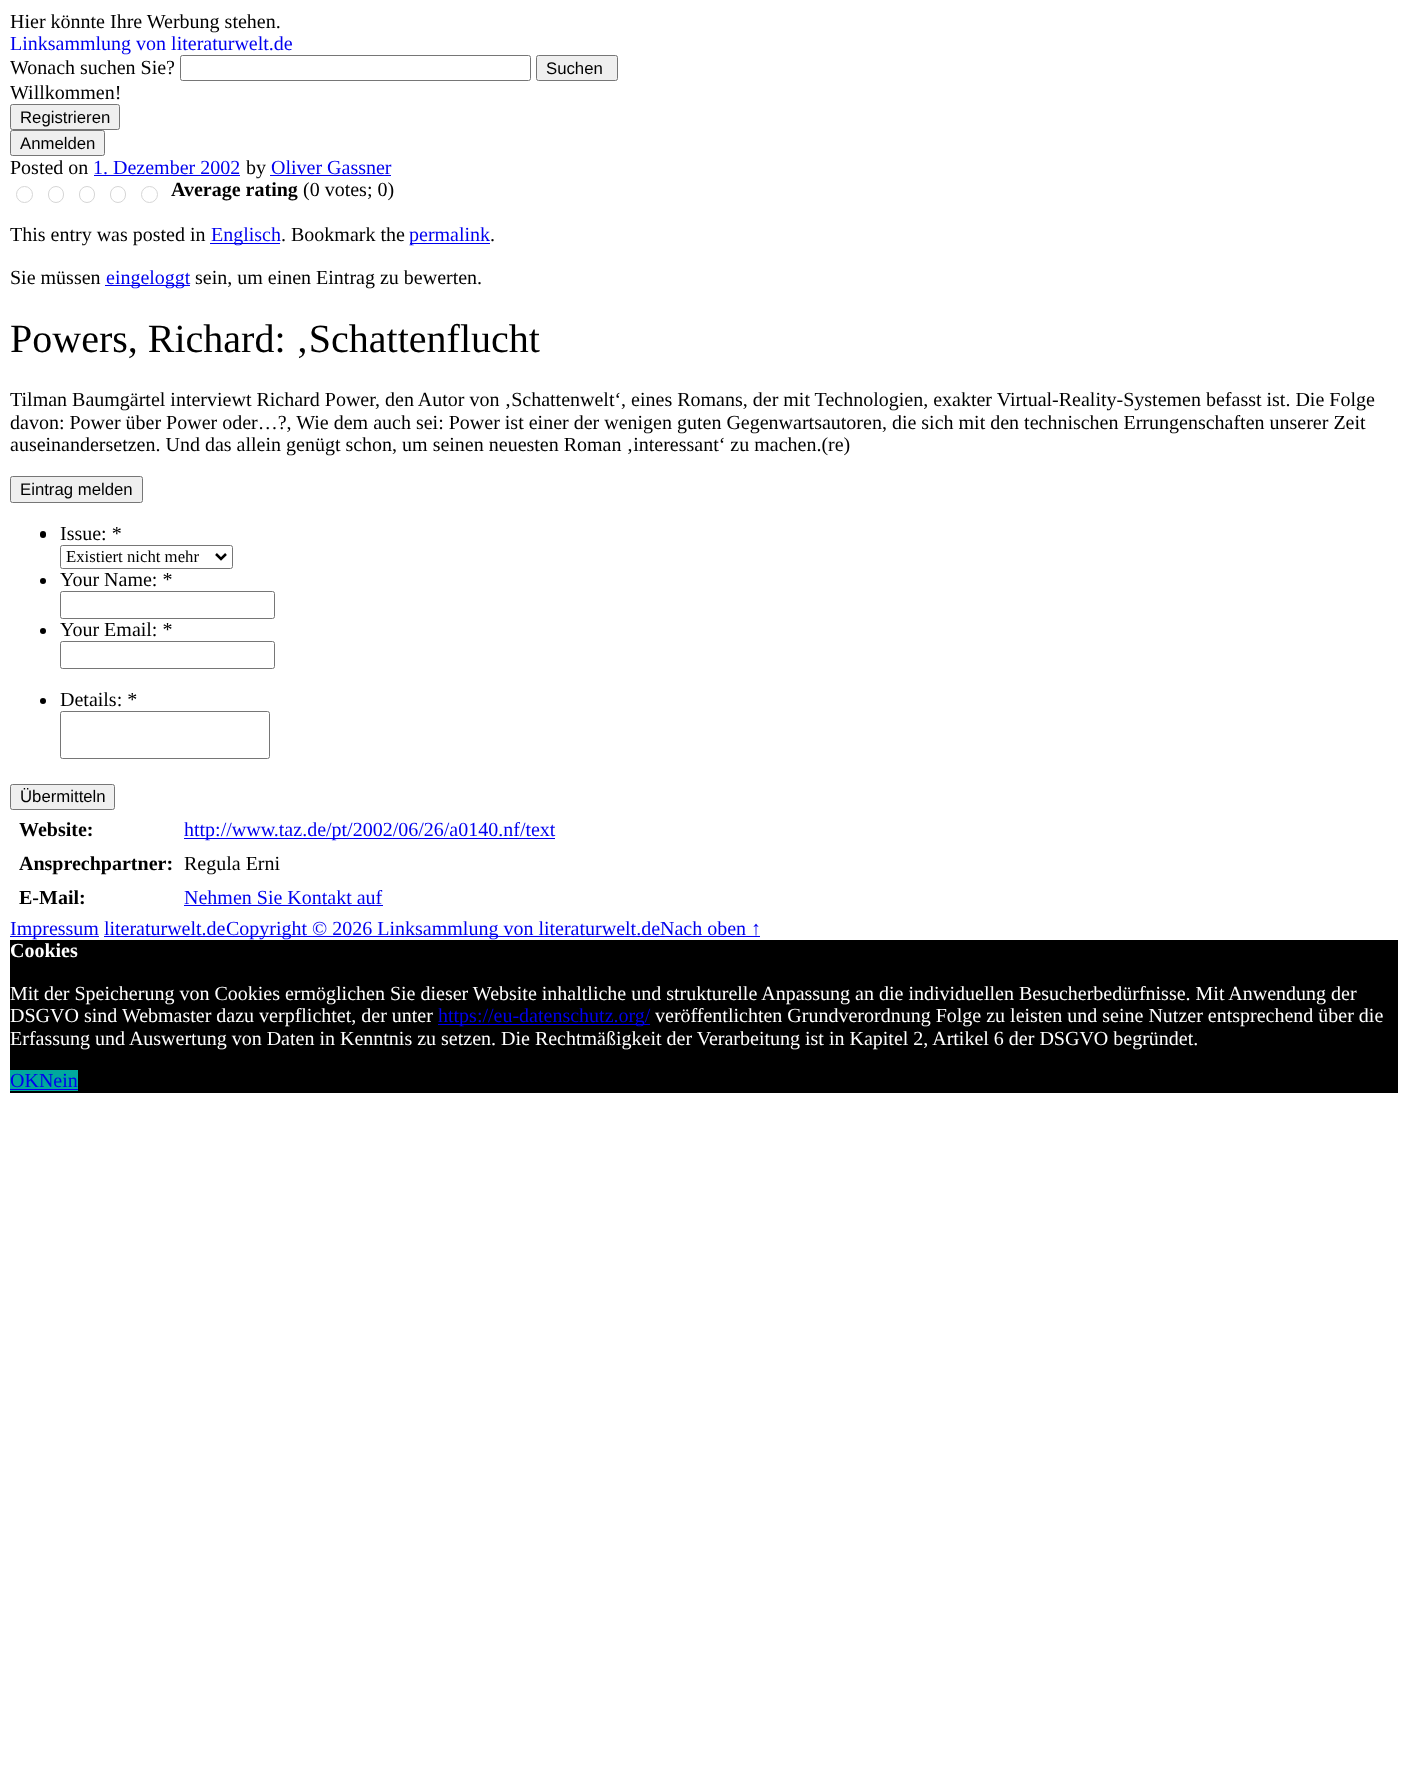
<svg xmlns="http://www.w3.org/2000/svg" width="1407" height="1768">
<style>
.a{font:20px Liberation Serif;fill:#000}
.b{font:20px Liberation Serif;fill:#00e}
.c{font:16.75px Liberation Sans;fill:#000}
.d{font:bold 20px Liberation Serif;fill:#000}
.e{font:40px Liberation Serif;fill:#000}
.f{font:16.75px Liberation Serif;fill:#000}
.g{font:bold 20px Liberation Serif;fill:#fff}
.h{font:20px Liberation Serif;fill:#fff}
</style>
<rect width="100%" height="100%" fill="#fff"/>
<rect fill="none" stroke="#767676" x="180.5" y="55.5" width="350" height="25" rx="2"/>
<rect fill="#efefef" stroke="#767676" x="536.5" y="55.5" width="81" height="25" rx="2"/>
<rect fill="#efefef" stroke="#767676" x="10.5" y="104.5" width="109" height="25" rx="2"/>
<rect fill="#efefef" stroke="#767676" x="10.5" y="130.5" width="94" height="25" rx="2"/>
<path fill="#00e" d="M94 175h146v1H94z"/>
<path fill="#00e" d="M270 175h121v1H270z"/>
<circle fill="none" stroke="#d6d6d6" cx="24.5" cy="194.5" r="8"/>
<rect fill="none" stroke="#d6d6d6" x="48.5" y="186.5" width="15" height="16" rx="7.5"/>
<rect fill="none" stroke="#d6d6d6" x="79.5" y="186.5" width="15" height="16" rx="7.5"/>
<rect fill="none" stroke="#d6d6d6" x="110.5" y="186.5" width="15" height="16" rx="7.5"/>
<circle fill="none" stroke="#d6d6d6" cx="149.5" cy="194.5" r="8"/>
<path fill="#00e" d="M210 243h70v1H210z"/>
<path fill="#00e" d="M410 243h80v1H410z"/>
<path fill="#00e" d="M105 285h85v1H105z"/>
<rect fill="#efefef" stroke="#767676" x="10.5" y="476.5" width="132" height="26" rx="2"/>
<rect fill="#000" x="40" y="531" width="6" height="7" rx="3"/>
<rect fill="none" stroke="#767676" x="60.5" y="545.5" width="172" height="23" rx="2"/>
<path fill="none" stroke="#000" stroke-width="2.5" d="M216 554l5 5l5-5"/>
<circle fill="#000" cx="43" cy="581" r="3"/>
<rect fill="none" stroke="#767676" x="60.5" y="591.5" width="214" height="27" rx="2"/>
<circle fill="#000" cx="43" cy="631" r="3"/>
<rect fill="none" stroke="#767676" x="60.5" y="641.5" width="214" height="27" rx="2"/>
<circle fill="#000" cx="43" cy="701" r="3"/>
<rect fill="none" stroke="#767676" x="60.5" y="711.5" width="209" height="47" rx="2"/>
<rect fill="#efefef" stroke="#767676" x="10.5" y="784.5" width="104" height="25" rx="2"/>
<path fill="#00e" d="M184 838h371v1H184z"/>
<path fill="#00e" d="M184 905h199v1H184z"/>
<path fill="#00e" d="M10 936h89v1H10z"/>
<path fill="#00e" d="M104 936h656v1H104z"/>
<path fill="#000" d="M10 940h1388v153H10z"/>
<path fill="#00e" d="M438 1024h212v1H438z"/>
<path fill="#00a99d" d="M10 1070h68v21H10z"/>
<path fill="#00e" d="M10 1089h68v1H10z"/>
<text class="a" x="10" y="28">Hier könnte Ihre Werbung stehen.</text>
<text class="b" x="10" y="50">Linksammlung von literaturwelt.de</text>
<text class="a" x="10" y="74">Wonach suchen Sie?</text>
<text class="c" x="546" y="74">Suchen</text>
<text class="a" x="10" y="99">Willkommen!</text>
<text class="c" x="20" y="123">Registrieren</text>
<text class="c" x="20" y="149">Anmelden</text>
<text class="a" x="10" y="174">Posted on</text>
<text class="b" x="93" y="174">1. Dezember 2002</text>
<text class="a" x="246" y="174">by</text>
<text class="b" x="271" y="174">Oliver Gassner</text>
<text class="d" x="171" y="196">Average rating</text>
<text class="a" x="303" y="196">(0 votes; 0)</text>
<text class="a" x="10" y="241">This entry was posted in</text>
<text class="b" x="211" y="241">Englisch</text>
<text class="a" x="281" y="241">. Bookmark the</text>
<text class="b" x="409" y="241">permalink</text>
<text class="a" x="490" y="241">.</text>
<text class="a" x="10" y="284">Sie müssen</text>
<text class="b" x="106" y="284">eingeloggt</text>
<text class="a" x="195" y="284">sein, um einen Eintrag zu bewerten.</text>
<text class="e" x="10" y="352">Powers, Richard: ‚Schattenflucht</text>
<text class="a" x="10" y="406">Tilman Baumgärtel interviewt Richard Power, den Autor von ‚Schattenwelt‘, eines Romans, der mit Technologien, exakter Virtual-Reality-Systemen befasst ist. Die Folge</text>
<text class="a" x="10" y="429">davon: Power über Power oder…?, Wie dem auch sei: Power ist einer der wenigen guten Gegenwartsautoren, die sich mit den technischen Errungenschaften unserer Zeit</text>
<text class="a" x="10" y="451">auseinandersetzen. Und das allein genügt schon, um seinen neuesten Roman ‚interessant‘ zu machen.(re)</text>
<text class="c" x="20" y="495">Eintrag melden</text>
<text class="a" x="60" y="540">Issue: *</text>
<text class="f" x="66" y="562">Existiert nicht mehr</text>
<text class="a" x="60" y="586">Your Name: *</text>
<text class="a" x="60" y="636">Your Email: *</text>
<text class="a" x="60" y="706">Details: *</text>
<text class="c" x="20" y="802">Übermitteln</text>
<text class="d" x="19" y="836">Website:</text>
<text class="b" x="184" y="836">http://www.taz.de/pt/2002/06/26/a0140.nf/text</text>
<text class="d" x="19" y="870">Ansprechpartner:</text>
<text class="a" x="184" y="870">Regula Erni</text>
<text class="d" x="19" y="904">E-Mail:</text>
<text class="b" x="184" y="904">Nehmen Sie Kontakt auf</text>
<text class="b" x="10" y="935">Impressum literaturwelt.de</text>
<text class="b" x="226" y="935">Copyright © 2026 Linksammlung von literaturwelt.deNach oben ↑</text>
<text class="g" x="10" y="957">Cookies</text>
<text class="h" x="10" y="1000">Mit der Speicherung von Cookies ermöglichen Sie dieser Website inhaltliche und strukturelle Anpassung an die individuellen Besucherbedürfnisse. Mit Anwendung der</text>
<text class="h" x="10" y="1022">DSGVO sind Webmaster dazu verpflichtet, der unter</text>
<text class="b" x="438" y="1022">https://eu-datenschutz.org/</text>
<text class="h" x="655" y="1022">veröffentlichten Grundverordnung Folge zu leisten und seine Nutzer entsprechend über die</text>
<text class="h" x="10" y="1045">Erfassung und Auswertung von Daten in Kenntnis zu setzen. Die Rechtmäßigkeit der Verarbeitung ist in Kapitel 2, Artikel 6 der DSGVO begründet.</text>
<text class="b" x="10" y="1087">OKNein</text>
</svg>
